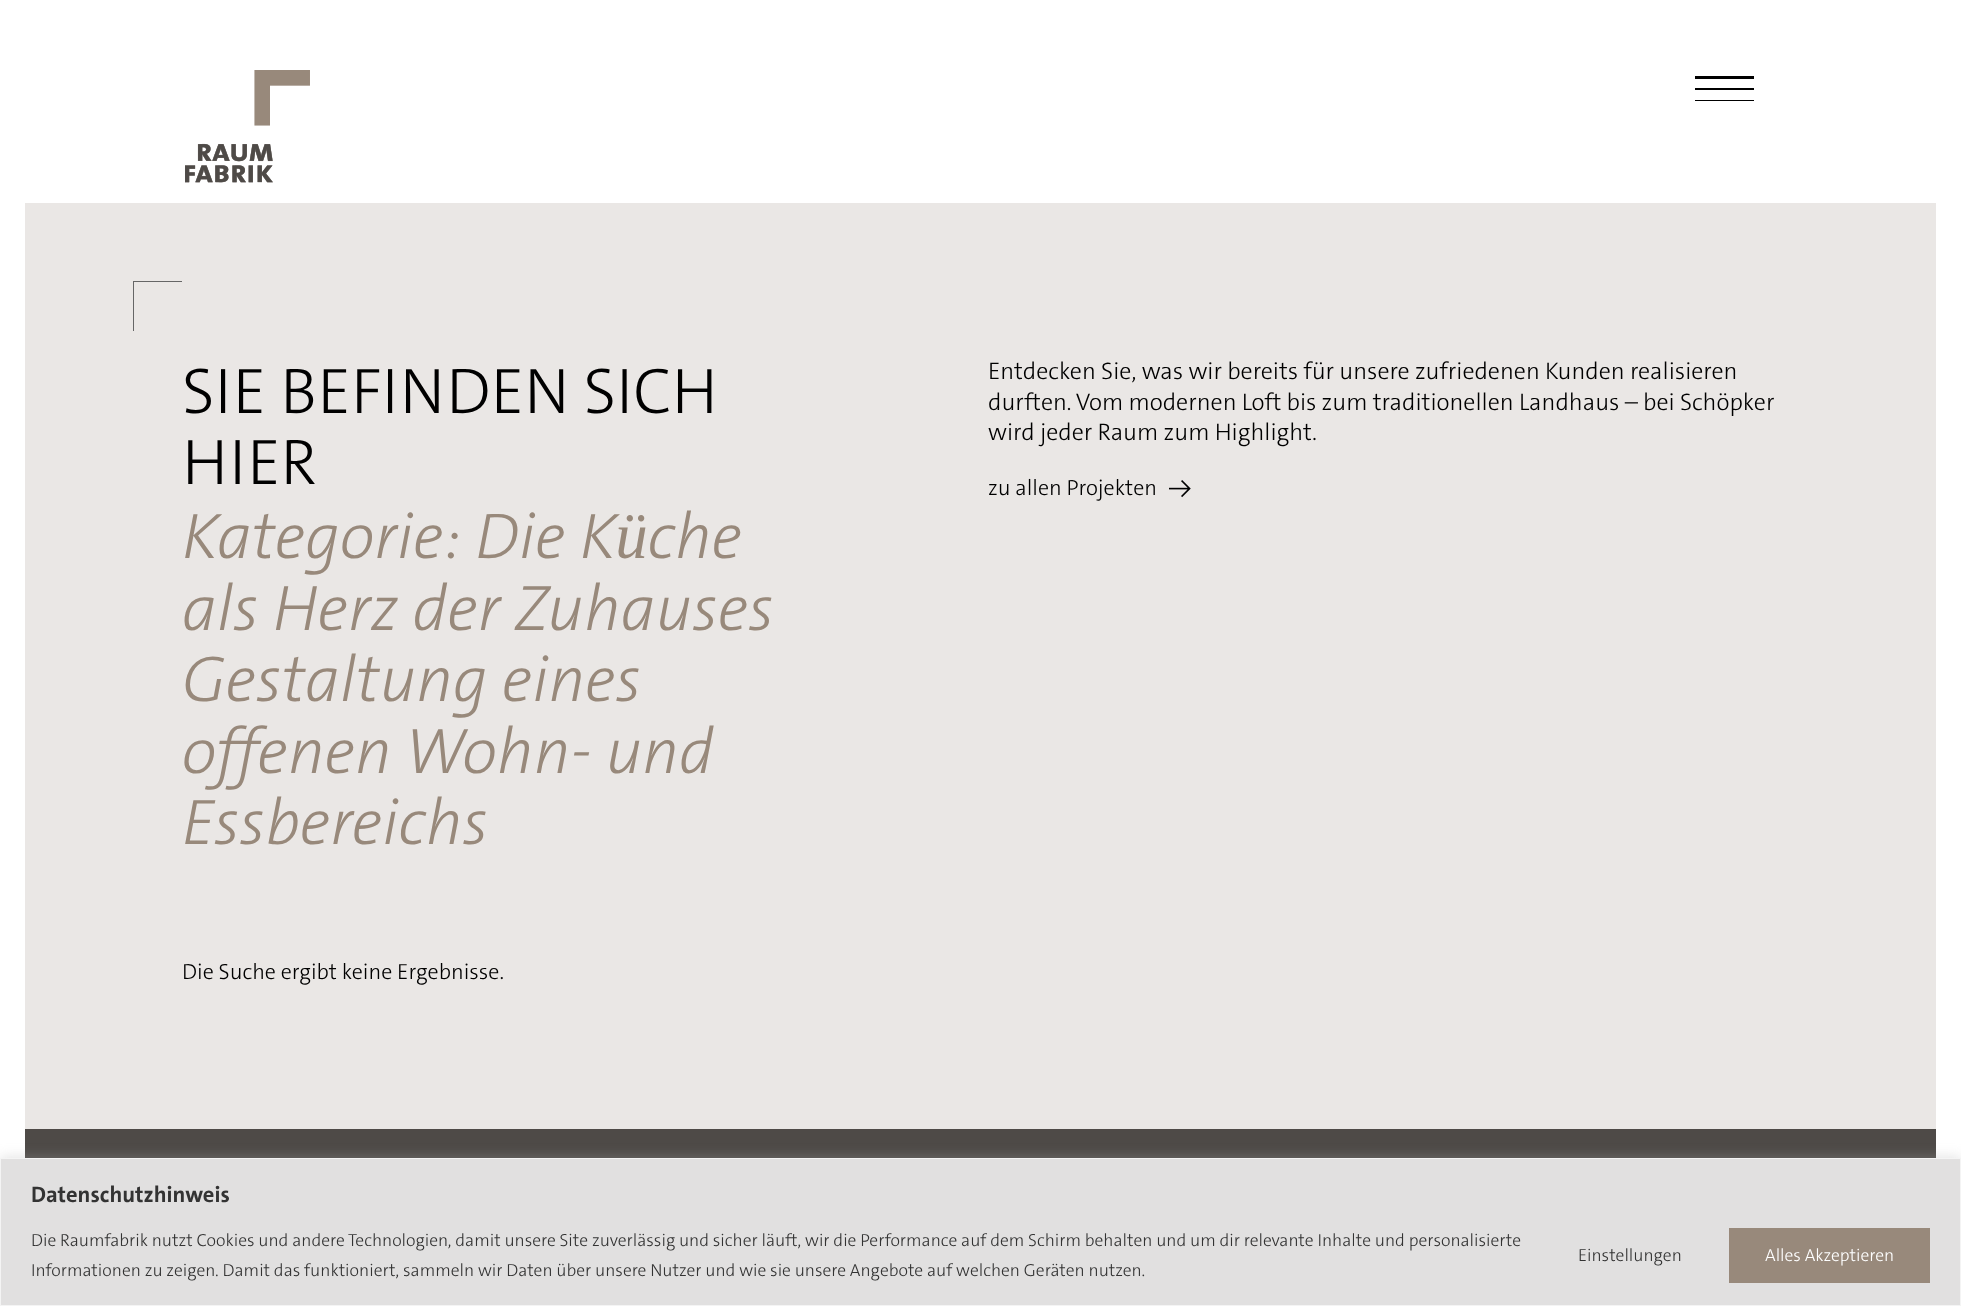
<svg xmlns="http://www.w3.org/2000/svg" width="1961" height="1306">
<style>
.a{font:300 65px 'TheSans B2';fill:#000}
.b{font:italic 300 65px 'TheSans B2';fill:#98897b}
.c{font:300 24px 'TheSans B2';fill:#000}
.d{font:300 22px 'TheSans B2';fill:#000}
.e{font:bold 22.5px 'TheSans B2';fill:#333}
.f{font:300 17.5px 'TheSans B2';fill:#333}
.g{font:300 17.5px 'TheSans B2';fill:#fff}
</style>
<defs>
<clipPath id="clip1"><path d="M133 281h50v50H133z"/></clipPath>
</defs>
<rect width="100%" height="100%" fill="#fff"/>
<image href="1.png" x="185" y="70" width="125" height="113"/>
<path fill="#000" d="M1695 76h59v3H1695z"/>
<path fill="#000" d="M1695 88h59v2H1695z"/>
<path fill="#000" d="M1695 100h59v1H1695z"/>
<path fill="#eae7e5" d="M25 203h1911v926H25z"/>
<g clip-path="url(#clip1)">
<path fill="#666" d="M182 282v-1h-50v50h2v-49h48"/>
</g>
<image href="2.png" x="1169" y="480" width="22" height="18"/>
<path fill="#4e4a47" d="M25 1129h1911v29H25z"/>
<path fill="#acabab4d" filter="blur(6px)" d="M0 1156h1961v149H0z"/>
<path fill="#e1e0e0" stroke="#f4f4f4" d="M0.5 1158.5h1960v147H0.5z"/>
<path fill="#98897b" d="M1729 1228h201v55H1729z"/>
<text class="a" x="182" y="413">SIE BEFINDEN SICH</text>
<text class="a" x="182" y="484">HIER</text>
<text class="b" x="182" y="558">Kategorie: Die Küche</text>
<text class="b" x="182" y="630">als Herz der Zuhauses</text>
<text class="b" x="182" y="701">Gestaltung eines</text>
<text class="b" x="182" y="773">offenen Wohn- und</text>
<text class="b" x="182" y="844">Essbereichs</text>
<text class="c" x="988" y="379">Entdecken Sie, was wir bereits für unsere zufriedenen Kunden realisieren</text>
<text class="c" x="988" y="410">durften. Vom modernen Loft bis zum traditionellen Landhaus – bei Schöpker</text>
<text class="c" x="988" y="440">wird jeder Raum zum Highlight.</text>
<text class="d" x="988" y="495">zu allen Projekten</text>
<text class="d" x="182" y="979">Die Suche ergibt keine Ergebnisse.</text>
<text class="e" x="31" y="1202">Datenschutzhinweis</text>
<text class="f" x="31" y="1246">Die Raumfabrik nutzt Cookies und andere Technologien, damit unsere Site zuverlässig und sicher läuft, wir die Performance auf dem Schirm behalten und um dir relevante Inhalte und personalisierte</text>
<text class="f" x="31" y="1276">Informationen zu zeigen. Damit das funktioniert, sammeln wir Daten über unsere Nutzer und wie sie unsere Angebote auf welchen Geräten nutzen.</text>
<text class="f" x="1578" y="1261">Einstellungen</text>
<text class="g" x="1765" y="1261">Alles Akzeptieren</text>
</svg>
